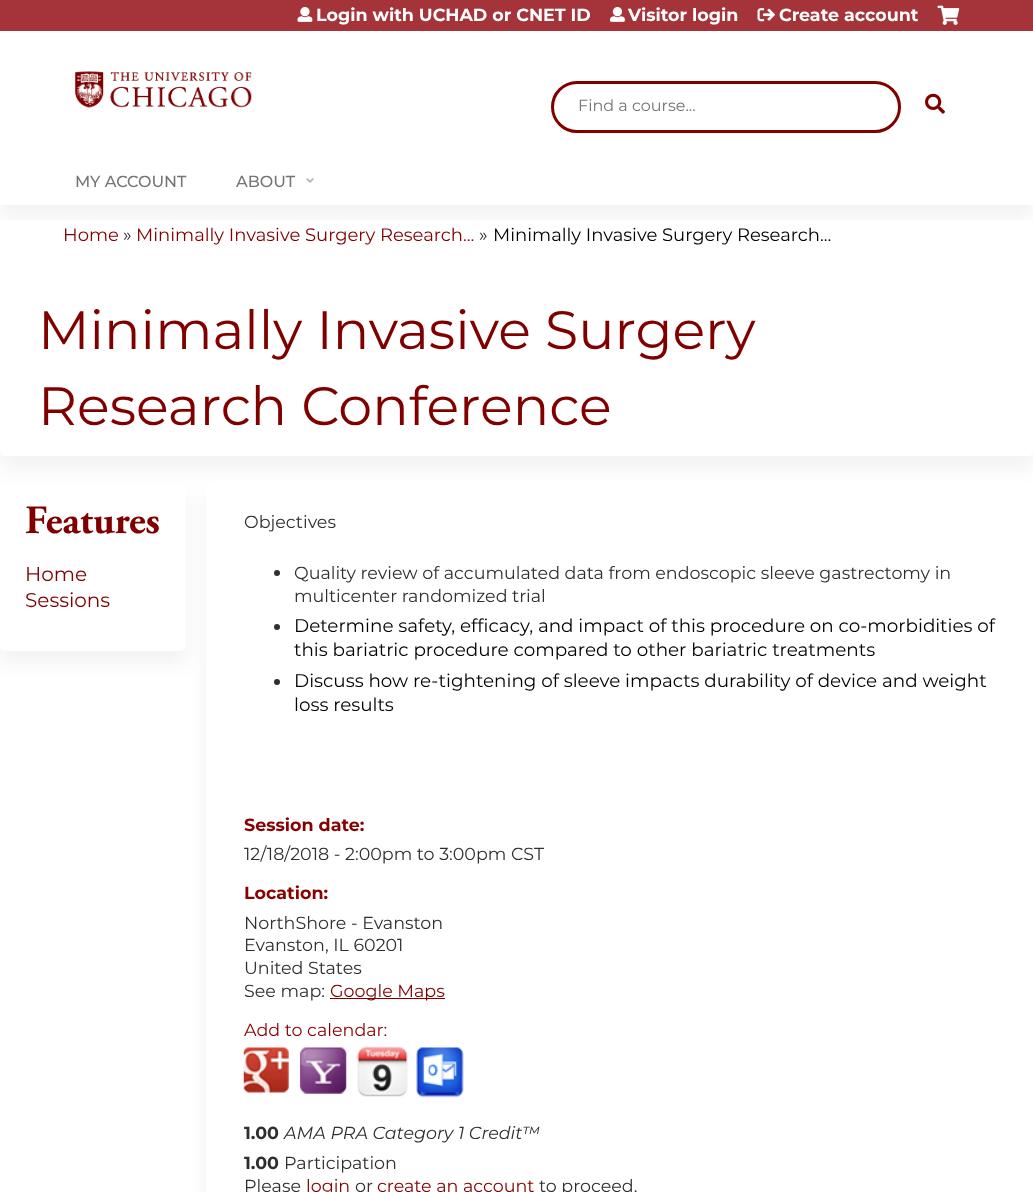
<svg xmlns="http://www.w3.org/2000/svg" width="1033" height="1192">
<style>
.a{font:bold 17.5px Montserrat;fill:#fff}
.b{font:16px Montserrat;fill:#757575}
.c{font:500 16px Montserrat;fill:#757575}
.d{font:18px Montserrat;fill:#800000}
.e{font:18px Montserrat;fill:#2f2f2f}
.f{font:18px Montserrat;fill:#000}
.g{font:54px Montserrat;fill:#800000}
.h{font:bold 40px Adobe Garamond;fill:#800000}
.i{font:20px Montserrat;fill:#800000}
.j{font:17.5px Montserrat;fill:#2f2f2f}
.k{font:18.35px Montserrat;fill:#000}
.l{font:bold 17.5px Montserrat;fill:#800}
.m{font:17.5px Montserrat;fill:#800000}
.n{font:17.5px Montserrat;fill:#800}
.o{font:bold 17.5px Montserrat;fill:#2f2f2f}
.p{font:italic 17.5px Montserrat;fill:#2f2f2f}
</style>
<defs>
<clipPath id="clip1"><path d="M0 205h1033v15H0z"/></clipPath>
<clipPath id="clip2"><path d="M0 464h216v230h-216zm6 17h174c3.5 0 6 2.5 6 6v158c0 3.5-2.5 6-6 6h-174c-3.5 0-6-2.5-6-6v-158c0-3.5 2.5-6 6-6z" clip-rule="evenodd"/></clipPath>
</defs>
<rect width="100%" height="100%" fill="#fff"/>
<path fill="#a4343a" d="M0 0h1033v31H0z"/>
<image href="1.png" x="75" y="71" width="177" height="37"/>
<image href="2.png" x="297" y="7" width="16" height="15"/>
<image href="3.png" x="610" y="7" width="15" height="15"/>
<image href="4.png" x="757" y="8" width="18" height="14"/>
<image href="5.png" x="937" y="5" width="23" height="20"/>
<rect fill="none" stroke="#800000" stroke-width="3" x="552.5" y="82.5" width="347" height="49" rx="24.5"/>
<image href="6.png" x="925" y="93" width="20" height="21"/>
<g clip-path="url(#clip1)">
<path fill="#0000000d" filter="blur(9.5px)" d="M0 170h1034v48H0z"/>
</g>
<image href="7.png" x="306" y="178" width="8" height="5"/>
<rect fill="#0000000d" filter="blur(9.5px)" y="286" width="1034" height="183" rx="6"/>
<rect fill="#fff" y="274" width="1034" height="182" rx="6"/>
<rect fill="#0000000d" filter="blur(9.5px)" x="206" y="494" width="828" height="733" rx="6"/>
<rect fill="#fff" x="206" y="481" width="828" height="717" rx="6"/>
<g clip-path="url(#clip2)">
<rect fill="#0000000d" filter="blur(9.5px)" y="494" width="186" height="170" rx="6"/>
</g>
<circle fill="#2f2f2f" cx="277" cy="573" r="3"/>
<circle fill="#2f2f2f" cx="277" cy="627" r="3"/>
<circle fill="#2f2f2f" cx="277" cy="682" r="3"/>
<path fill="#800000" d="M330 998h115v1H330z"/>
<image href="8.png" x="243" y="1047" width="46" height="46"/>
<image href="9.png" x="300" y="1047" width="47" height="47"/>
<image href="10.png" x="357" y="1046" width="51" height="51"/>
<image href="11.png" x="416" y="1047" width="48" height="51"/>
<text class="a" x="316" y="21">Login with UCHAD or CNET ID</text>
<text class="a" x="628" y="21">Visitor login</text>
<text class="a" x="779" y="21">Create account</text>
<text class="b" x="578" y="111">Find a course...</text>
<text class="c" x="75" y="187">MY ACCOUNT</text>
<text class="c" x="236" y="187">ABOUT</text>
<text class="d" x="63" y="241">Home</text>
<text class="e" x="123" y="241">»</text>
<text class="d" x="136" y="241">Minimally Invasive Surgery Research...</text>
<text class="e" x="479" y="241">»</text>
<text class="f" x="493" y="241">Minimally Invasive Surgery Research...</text>
<text class="g" x="38" y="349">Minimally Invasive Surgery</text>
<text class="g" x="38" y="425">Research Conference</text>
<text class="h" x="25" y="533">Features</text>
<text class="i" x="25" y="581">Home</text>
<text class="i" x="25" y="607">Sessions</text>
<text class="j" x="244" y="528">Objectives</text>
<text class="j" x="294" y="579">Quality review of accumulated data from endoscopic sleeve gastrectomy in</text>
<text class="j" x="294" y="602">multicenter randomized trial</text>
<text class="k" x="294" y="632">Determine safety, efficacy, and impact of this procedure on co-morbidities of</text>
<text class="k" x="294" y="656">this bariatric procedure compared to other bariatric treatments</text>
<text class="k" x="294" y="687">Discuss how re-tightening of sleeve impacts durability of device and weight</text>
<text class="k" x="294" y="711">loss results</text>
<text class="l" x="244" y="831">Session date:</text>
<text class="j" x="244" y="860">12/18/2018 - 2:00pm to 3:00pm CST</text>
<text class="l" x="244" y="899">Location:</text>
<text class="j" x="244" y="929">NorthShore - Evanston</text>
<text class="j" x="244" y="951">Evanston, IL 60201</text>
<text class="j" x="244" y="974">United States</text>
<text class="j" x="244" y="997">See map:</text>
<text class="m" x="330" y="997">Google Maps</text>
<text class="n" x="244" y="1036">Add to calendar:</text>
<text class="o" x="244" y="1139">1.00</text>
<text class="p" x="284" y="1139">AMA PRA Category 1 Credit™</text>
<text class="o" x="244" y="1169">1.00</text>
<text class="j" x="284" y="1169">Participation</text>
<text class="j" x="244" y="1192">Please</text>
<text class="m" x="306" y="1192">login</text>
<text class="j" x="355" y="1192">or</text>
<text class="m" x="377" y="1192">create an account</text>
<text class="j" x="539" y="1192">to proceed.</text>
</svg>
